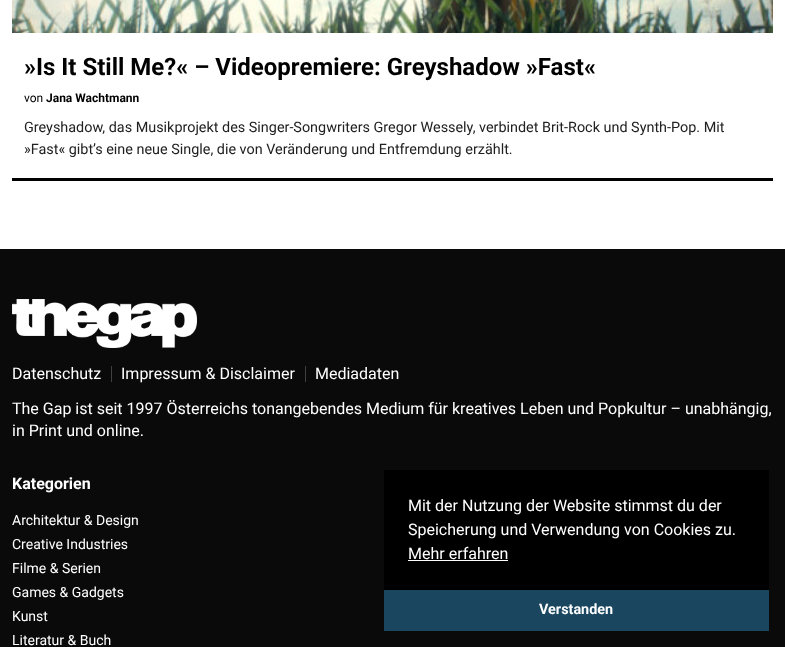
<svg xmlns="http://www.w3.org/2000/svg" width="785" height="647">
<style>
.a{font:bold 24px Roboto;fill:#000}
.b{font:12px Roboto;fill:#000}
.c{font:bold 12px Roboto;fill:#000}
.d{font:14.4px Roboto;fill:#212121}
.e{font:16px Roboto;fill:#fff}
.f{font:bold 16px Roboto;fill:#fff}
.g{font:14px Roboto;fill:#fff}
.h{font:bold 14.4px Roboto;fill:#fff}
</style>
<rect width="100%" height="100%" fill="#fff"/>
<path fill="#000" d="M12 178h761v3H12z"/>
<image href="1.png" x="12" y="0" width="761" height="33"/>
<path fill="#0a0a0a" d="M0 249h785v398H0z"/>
<image href="2.png" x="12" y="299" width="185" height="49"/>
<path fill="#404040" d="M111 366h1v16H111z"/>
<path fill="#404040" d="M305 366h1v16H305z"/>
<path fill="#000" d="M384 470h385v120H384z"/>
<path fill="#fff" d="M408 560h100v1H408z"/>
<path fill="#1a465f" d="M384 590h385v41H384z"/>
<text class="a" x="24" y="75">»Is It Still Me?« – Videopremiere: Greyshadow »Fast«</text>
<text class="b" x="24" y="102">von</text>
<text class="c" x="46" y="102">Jana Wachtmann</text>
<text class="d" x="24" y="132">Greyshadow, das Musikprojekt des Singer-Songwriters Gregor Wessely, verbindet Brit-Rock und Synth-Pop. Mit</text>
<text class="d" x="24" y="154">»Fast« gibt’s eine neue Single, die von Veränderung und Entfremdung erzählt.</text>
<text class="e" x="12" y="379">Datenschutz</text>
<text class="e" x="121" y="379">Impressum &amp; Disclaimer</text>
<text class="e" x="315" y="379">Mediadaten</text>
<text class="e" x="12" y="414">The Gap ist seit 1997 Österreichs tonangebendes Medium für kreatives Leben und Popkultur – unabhängig,</text>
<text class="e" x="12" y="436">in Print und online.</text>
<text class="f" x="12" y="489">Kategorien</text>
<text class="g" x="12" y="525">Architektur &amp; Design</text>
<text class="g" x="12" y="549">Creative Industries</text>
<text class="g" x="12" y="573">Filme &amp; Serien</text>
<text class="g" x="12" y="597">Games &amp; Gadgets</text>
<text class="g" x="12" y="621">Kunst</text>
<text class="g" x="12" y="645">Literatur &amp; Buch</text>
<text class="e" x="408" y="511">Mit der Nutzung der Website stimmst du der</text>
<text class="e" x="408" y="535">Speicherung und Verwendung von Cookies zu.</text>
<text class="e" x="408" y="559">Mehr erfahren</text>
<text class="h" x="539" y="614">Verstanden</text>
</svg>
